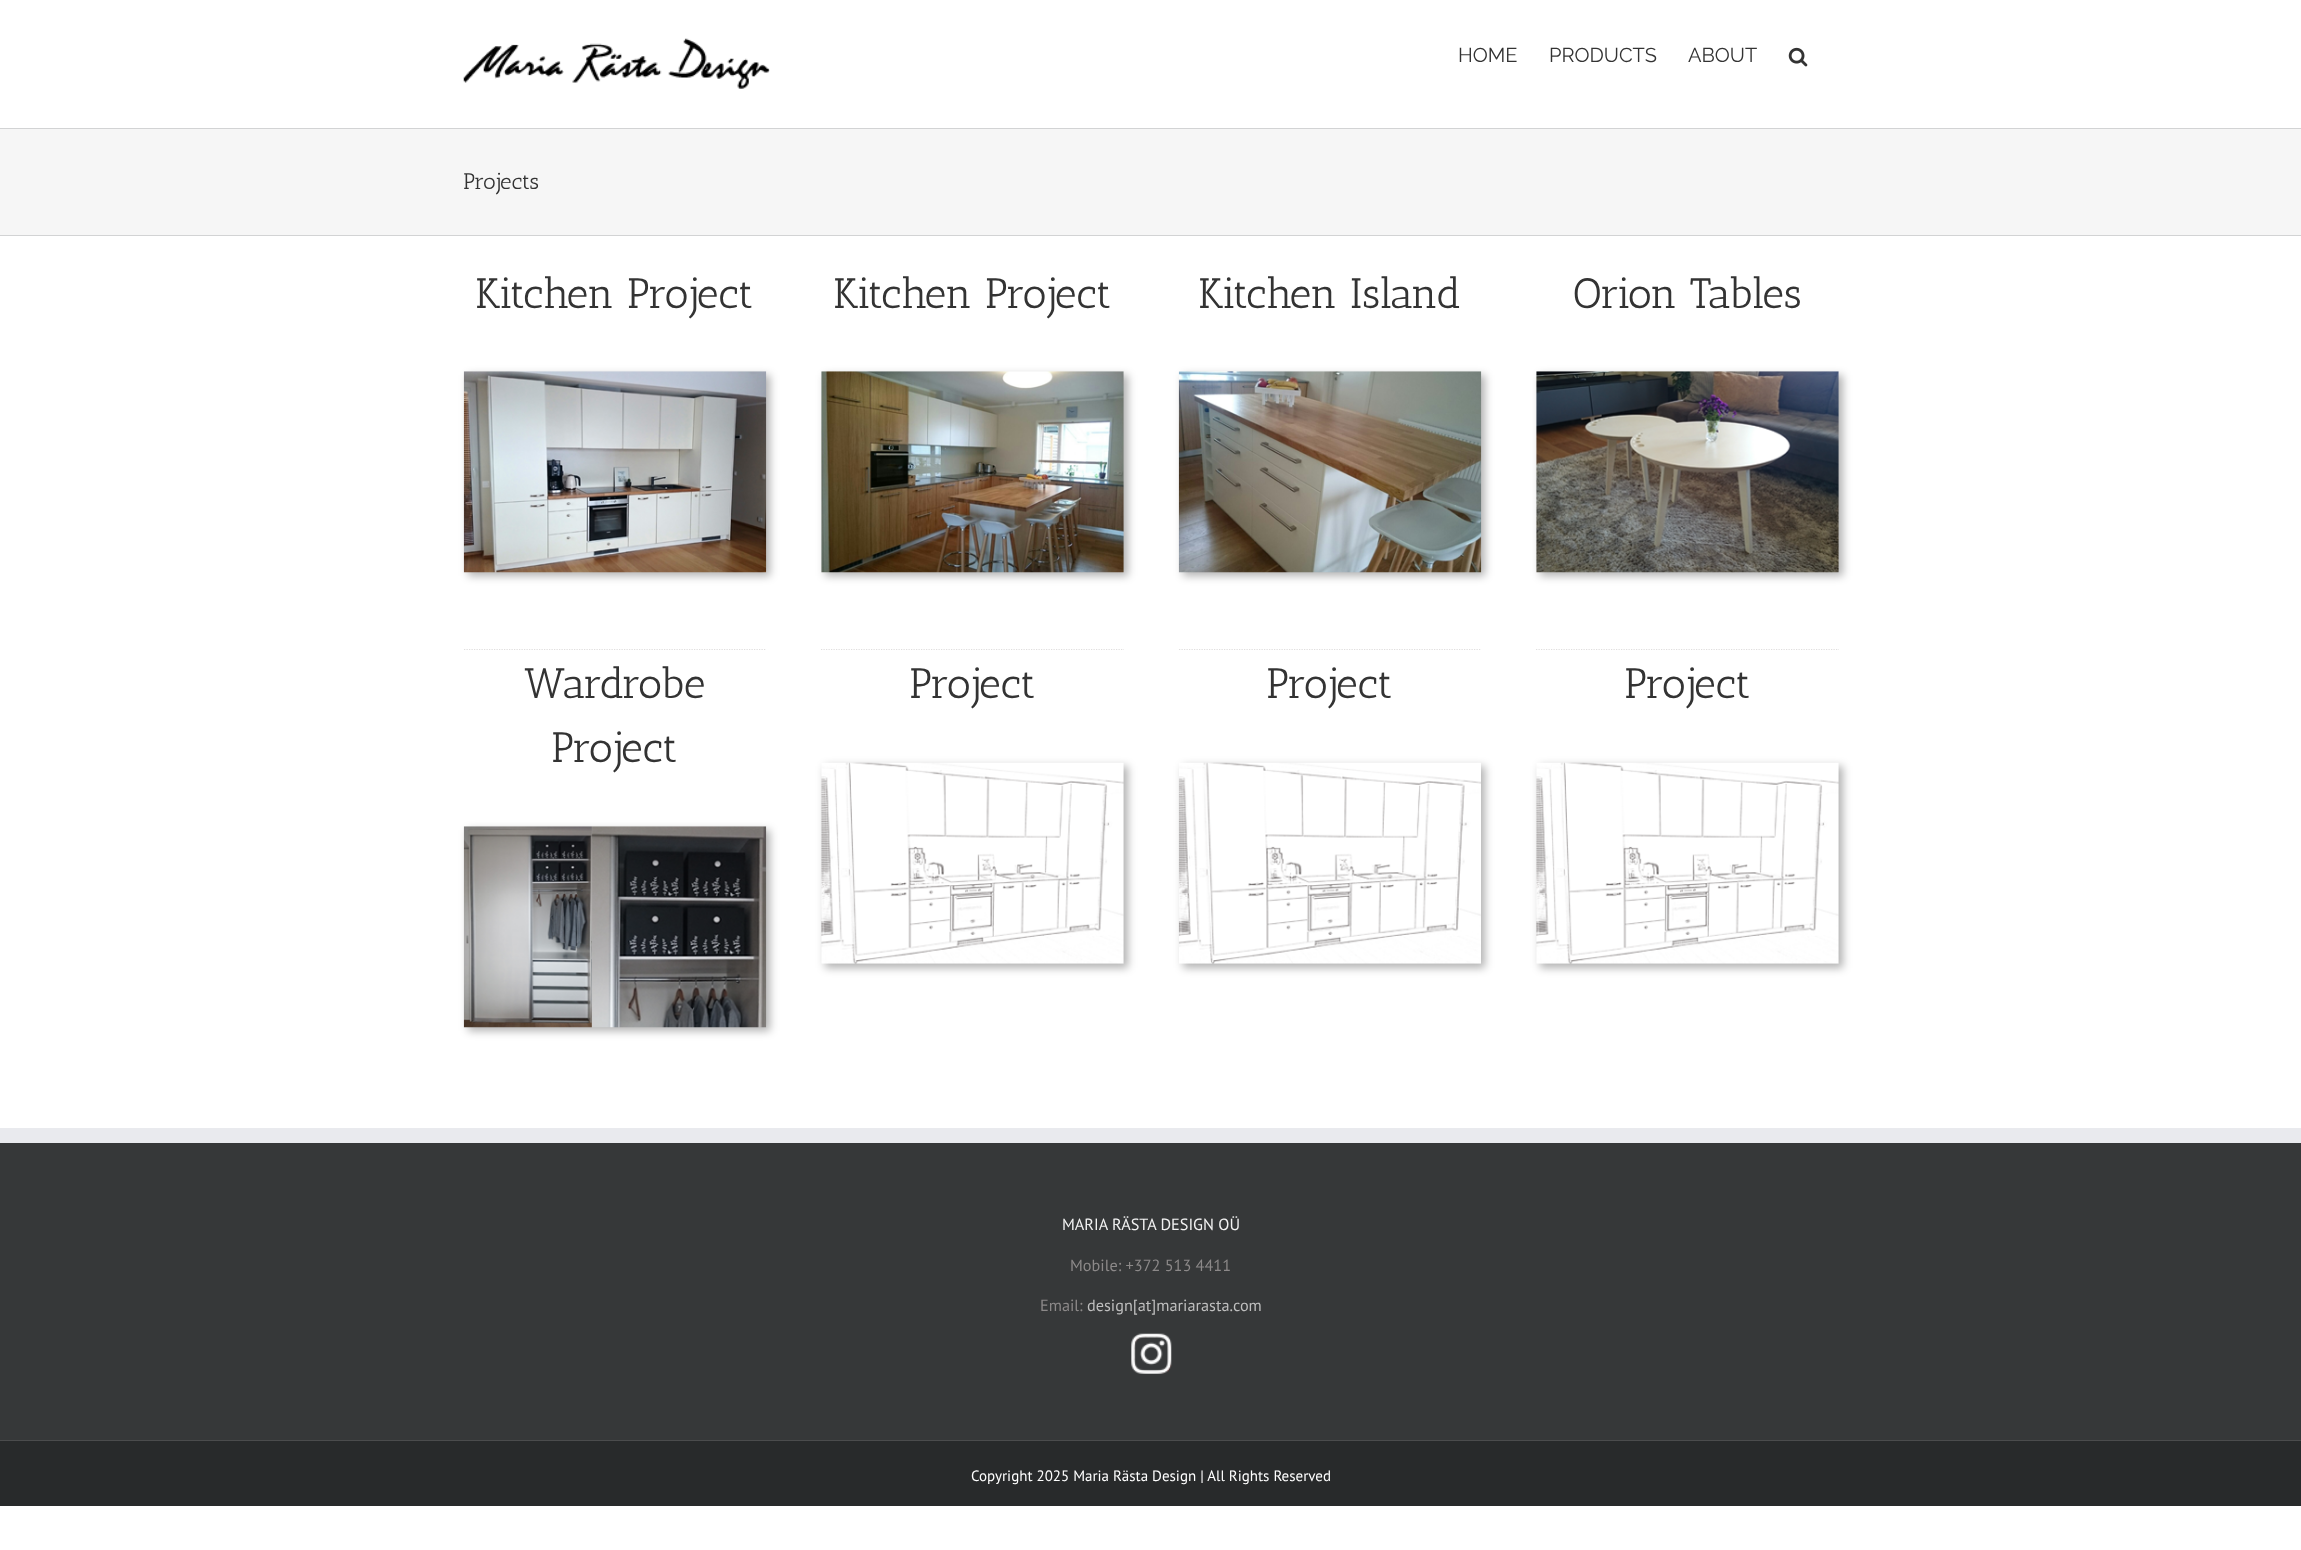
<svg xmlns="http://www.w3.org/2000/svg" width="2301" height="1550">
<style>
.a{font:100 20px Raleway;fill:#333}
.b{font:22.5px Antic Slab;fill:#333}
.c{font:42.5px Antic Slab;fill:#333}
.d{font:16.25px PT Sans;fill:#f2f2f2}
.e{font:16.25px PT Sans;fill:#8c8989}
.f{font:16.25px PT Sans;fill:#bfbfbf}
.g{font:15px PT Sans;fill:#fff}
</style>
<rect width="100%" height="100%" fill="#fff"/>
<image href="1.png" x="463" y="38" width="307" height="51"/>
<image href="2.png" x="1788" y="47" width="20" height="20"/>
<path fill="#f6f6f6" d="M0 129h2301v106H0z"/>
<path fill="#d2d3d4" d="M0 128h2301v1H0z"/>
<path fill="#d2d3d4" d="M0 235h2301v1H0z"/>
<path fill="#0000004d" filter="blur(4.5px)" d="M468 375h302v201H468z"/>
<image href="3.png" x="463" y="371" width="304" height="202"/>
<path fill="#0000004d" filter="blur(4.5px)" d="M825 375h303v201H825z"/>
<image href="4.png" x="821" y="371" width="303" height="202"/>
<path fill="#0000004d" filter="blur(4.5px)" d="M1183 375h302v201H1183z"/>
<image href="5.png" x="1178" y="371" width="304" height="202"/>
<path fill="#0000004d" filter="blur(4.5px)" d="M1540 375h303v201H1540z"/>
<image href="6.png" x="1536" y="371" width="303" height="202"/>
<path fill="none" stroke="#e0dede" stroke-width="1.2" stroke-dasharray="1.25 1.25" d="M464 649.5h302"/>
<path fill="#0000004d" filter="blur(4.5px)" d="M468 830h302v201H468z"/>
<image href="7.png" x="463" y="826" width="304" height="202"/>
<path fill="none" stroke="#e0dede" stroke-width="1.2" stroke-dasharray="1.25 1.25" d="M821 649.5h303"/>
<path fill="#0000004d" filter="blur(4.5px)" d="M825 766h303v202H825z"/>
<image href="8.png" x="821" y="762" width="303" height="202"/>
<path fill="none" stroke="#e0dede" stroke-width="1.2" stroke-dasharray="1.25 1.25" d="M1179 649.5h302"/>
<path fill="#0000004d" filter="blur(4.5px)" d="M1183 766h302v202H1183z"/>
<image href="9.png" x="1178" y="762" width="303" height="202"/>
<path fill="none" stroke="#e0dede" stroke-width="1.2" stroke-dasharray="1.25 1.25" d="M1536 649.5h303"/>
<path fill="#0000004d" filter="blur(4.5px)" d="M1540 766h303v202H1540z"/>
<image href="8.png" x="1536" y="762" width="303" height="202"/>
<path fill="#363839" d="M0 1143h2301v297H0z"/>
<path fill="#e9eaee" d="M0 1128h2301v15H0z"/>
<image href="10.png" x="1131" y="1333" width="41" height="41"/>
<path fill="#282a2b" d="M0 1441h2301v65H0z"/>
<path fill="#4b4c4d" d="M0 1440h2301v1H0z"/>
<text class="a" x="1458" y="62">HOME</text>
<text class="a" x="1549" y="62">PRODUCTS</text>
<text class="a" x="1688" y="62">ABOUT</text>
<text class="b" x="463" y="189">Projects</text>
<text class="c" x="475" y="308">Kitchen Project</text>
<text class="c" x="833" y="308">Kitchen Project</text>
<text class="c" x="1198" y="308">Kitchen Island</text>
<text class="c" x="1573" y="308">Orion Tables</text>
<text class="c" x="524" y="698">Wardrobe</text>
<text class="c" x="551" y="762">Project</text>
<text class="c" x="909" y="698">Project</text>
<text class="c" x="1266" y="698">Project</text>
<text class="c" x="1624" y="698">Project</text>
<text class="d" x="1062" y="1230">MARIA RÄSTA DESIGN OÜ</text>
<text class="e" x="1070" y="1271">Mobile: +372 513 4411</text>
<text class="e" x="1040" y="1311">Email:</text>
<text class="f" x="1087" y="1311">design[at]mariarasta.com</text>
<text class="g" x="971" y="1481">Copyright 2025 Maria Rästa Design | All Rights Reserved</text>
</svg>
